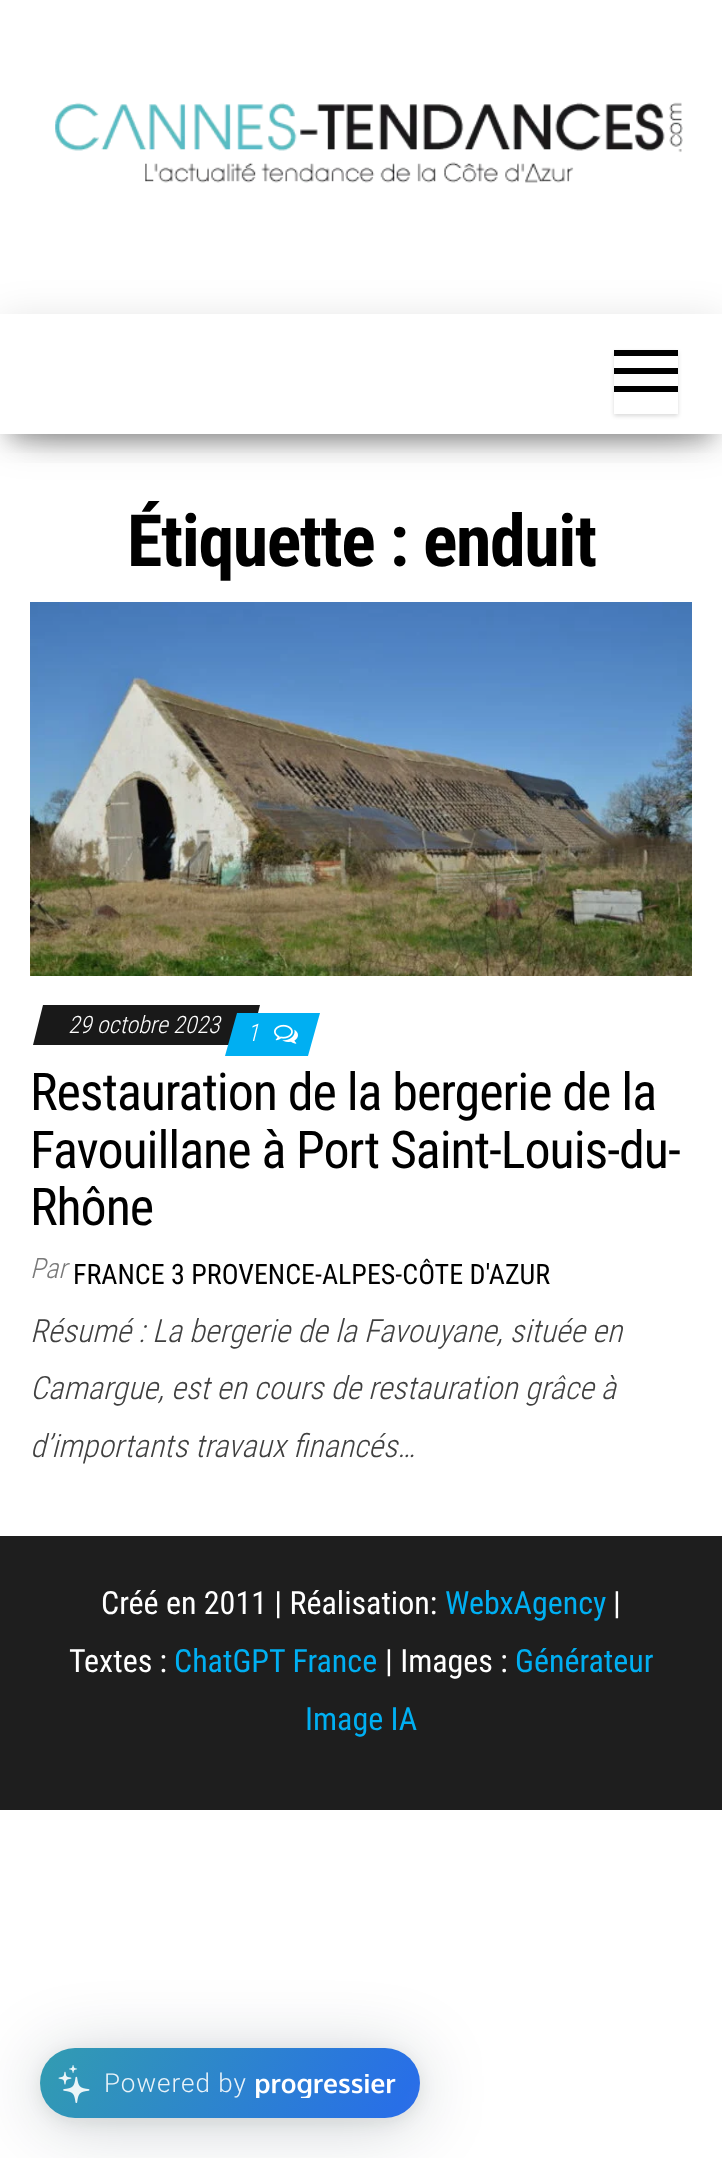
<svg xmlns="http://www.w3.org/2000/svg" width="722" height="2158">
<style>
.a{font:bold 72px Roboto Condensed;letter-spacing:-1.4px;fill:#000}
.b{font:italic 300 24px Roboto Condensed;fill:#fff}
.c{font:52px Roboto Condensed;letter-spacing:-1.05px;fill:#000}
.d{font:italic 300 28px Roboto Condensed;fill:#797979}
.e{font:28px Roboto Condensed;fill:#000}
.f{font:italic 300 32px Roboto Condensed;fill:#404040}
.g{font:32px Roboto Condensed;fill:#fff}
.h{font:32px Roboto Condensed;fill:#00aff2}
.i{font:300 26px Roboto;letter-spacing:1px;fill:#eaf3f9}
</style>
<defs>
<clipPath id="clip1"><path d="M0 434h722v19H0z"/></clipPath>
<clipPath id="clip2"><path d="M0 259h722v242h-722zm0 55h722v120h-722z" clip-rule="evenodd"/></clipPath>
<clipPath id="clip3"><path d="M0 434h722v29H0z"/></clipPath>
<clipPath id="clip4"><path d="M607 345h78v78h-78zm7 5h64v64h-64z" clip-rule="evenodd"/></clipPath>
<linearGradient id="g1" gradientUnits="userSpaceOnUse" x1="193" y1="1760" x2="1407" y2="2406"><stop offset="0" stop-color="#329cb1"/><stop offset="0.25" stop-color="#286fe7"/><stop offset="0.5" stop-color="#955cf2"/><stop offset="0.75" stop-color="#286fe7"/><stop offset="1" stop-color="#329cb1"/></linearGradient>
</defs>
<rect width="100%" height="100%" fill="#fff"/>
<image href="1.png" x="55" y="102" width="628" height="81"/>
<g clip-path="url(#clip1)">
<path fill="#00000033" filter="blur(10px)" d="M10 340h702v100H10z"/>
</g>
<g clip-path="url(#clip2)">
<path fill="#0000001f" filter="blur(20px)" d="M0 320h722v120H0z"/>
</g>
<g clip-path="url(#clip3)">
<path fill="#0000006b" filter="blur(20px)" d="M24 358h674v72H24z"/>
</g>
<g clip-path="url(#clip4)">
<path fill="#00000026" filter="blur(2px)" d="M614 352h64v64H614z"/>
</g>
<path fill="#000" d="M614 350h64v6H614z"/>
<path fill="#000" d="M614 368h64v6H614z"/>
<path fill="#000" d="M614 386h64v6H614z"/>
<image href="2.png" x="30" y="602" width="662" height="374"/>
<path fill="#191919" d="M43 1005h217l-10 40h-217z"/>
<path fill="#00aff2" d="M237 1013h83l-12 43h-83z"/>
<image href="3.png" x="274" y="1024" width="24" height="20"/>
<path fill="#1e1e1e" d="M0 1536h722v274H0z"/>
<rect fill="#07152933" filter="blur(35px)" x="40" y="2054" width="380" height="70" rx="35"/>
<rect fill="#0f290e14" filter="blur(8px)" x="40" y="2052" width="380" height="70" rx="35"/>
<rect fill="url(#g1)" x="40" y="2048" width="380" height="70" rx="35"/>
<image href="4.png" x="58" y="2065" width="32" height="38"/>
<image href="5.png" x="256" y="2074" width="140" height="24"/>
<text class="a" x="127" y="566">Étiquette : enduit</text>
<text class="b" x="68" y="1033">29 octobre 2023</text>
<text class="b" x="247" y="1041">1</text>
<text class="c" x="30" y="1110">Restauration de la bergerie de la</text>
<text class="c" x="30" y="1168">Favouillane à Port Saint-Louis-du-</text>
<text class="c" x="30" y="1225">Rhône</text>
<text class="d" x="30" y="1278">Par</text>
<text class="e" x="73" y="1284">FRANCE 3 PROVENCE-ALPES-CÔTE D'AZUR</text>
<text class="f" x="30" y="1342">Résumé : La bergerie de la Favouyane, située en</text>
<text class="f" x="30" y="1399">Camargue, est en cours de restauration grâce à</text>
<text class="f" x="30" y="1457">d’importants travaux financés…</text>
<text class="g" x="101" y="1614">Créé en 2011 | Réalisation:</text>
<text class="h" x="445" y="1614">WebxAgency</text>
<text class="g" x="613" y="1614">|</text>
<text class="g" x="69" y="1672">Textes :</text>
<text class="h" x="174" y="1672">ChatGPT France</text>
<text class="g" x="385" y="1672">| Images :</text>
<text class="h" x="515" y="1672">Générateur</text>
<text class="h" x="305" y="1730">Image IA</text>
<text class="i" x="104" y="2092">Powered by</text>
</svg>
